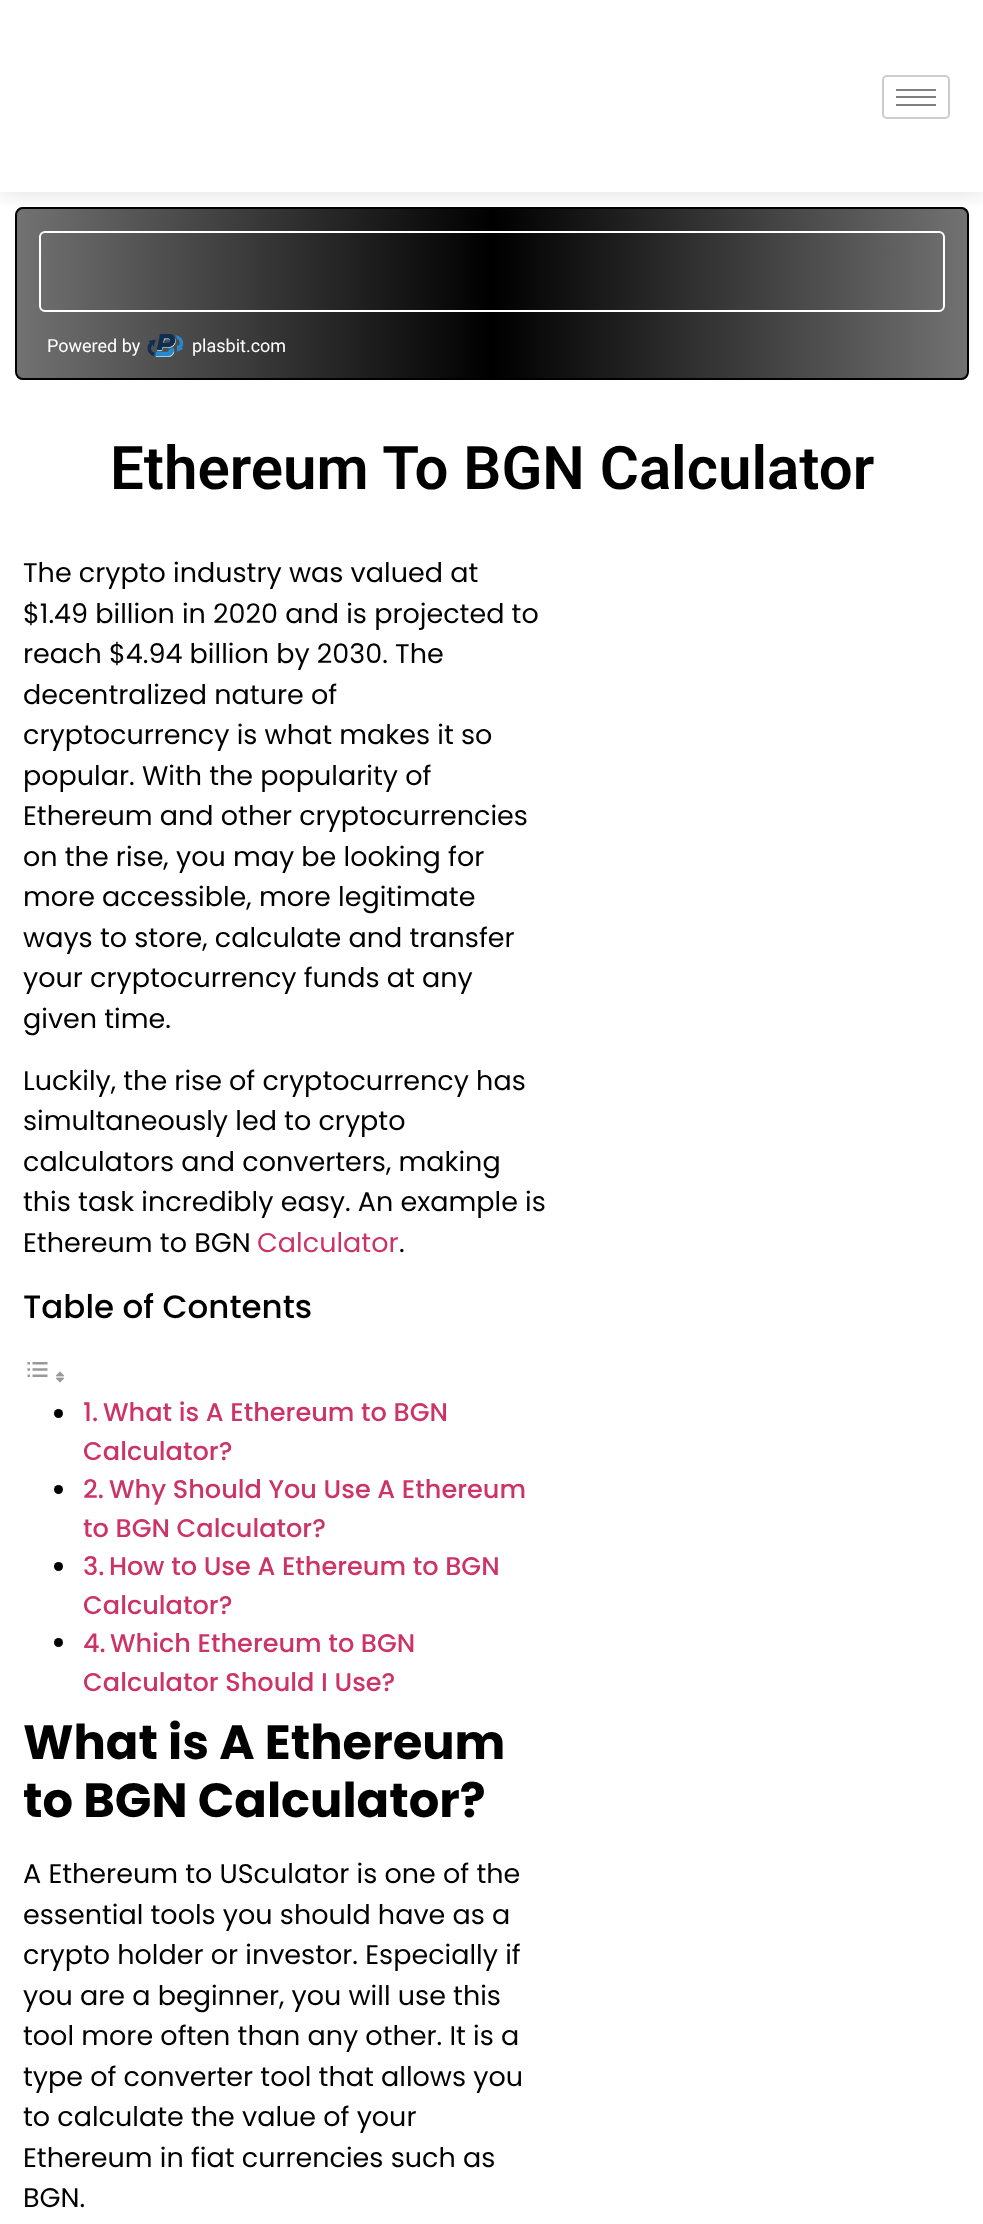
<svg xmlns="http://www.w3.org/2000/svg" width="983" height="2224">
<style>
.a{font:18px Roboto;fill:#fff}
.b{font:600 60px Roboto;fill:#000}
.c{font:27px Poppins;fill:#000}
.d{font:27px Poppins;fill:#c36}
.e{font:500 32.5px Poppins;fill:#000}
.f{font:500 25.6px Poppins;fill:#c36}
.g{font:bold 48px Poppins;fill:#000}
</style>
<defs>
<clipPath id="clip1"><rect x="15" y="207" width="954" height="173" rx="8"/></clipPath>
<linearGradient id="g1" gradientUnits="userSpaceOnUse" x1="17" y1="293" x2="968" y2="293"><stop offset="0" stop-color="#737272"/><stop offset="0.5" stop-color="#000"/><stop offset="1" stop-color="#737272"/></linearGradient>
<clipPath id="clip2"><path d="M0 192h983v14H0z"/></clipPath>
</defs>
<rect width="100%" height="100%" fill="#fff"/>
<g clip-path="url(#clip1)">
<path fill="url(#g1)" d="M17 207h951v173H17z"/>
</g>
<rect fill="none" stroke="#000" stroke-width="2" x="16" y="208" width="952" height="171" rx="7"/>
<rect fill="none" stroke="#fff" stroke-width="2" x="40" y="232" width="904" height="79" rx="5"/>
<g clip-path="url(#clip2)">
<path fill="#00000021" filter="blur(13.5px)" d="M0 0h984v192H0z"/>
</g>
<rect fill="none" stroke="#ccc" stroke-width="2" x="883" y="76" width="66" height="42" rx="4"/>
<path fill="#808080" d="M896 89h40v2H896z"/>
<path fill="#808080" d="M896 96h40v2H896z"/>
<path fill="#808080" d="M896 104h40v2H896z"/>
<image href="1.png" x="147" y="334" width="37" height="23"/>
<image href="2.png" x="27" y="1362" width="21" height="15"/>
<image href="3.png" x="56" y="1371" width="8" height="12"/>
<circle fill="#000" cx="58.5" cy="1413.5" r="4.5"/>
<circle fill="#000" cx="58.5" cy="1489.5" r="4.5"/>
<circle fill="#000" cx="58.5" cy="1566.5" r="4.5"/>
<circle fill="#000" cx="58.5" cy="1642.5" r="4.5"/>
<text class="a" x="47" y="352">Powered by</text>
<text class="a" x="192" y="352">plasbit.com</text>
<text class="b" x="110" y="489">Ethereum To BGN Calculator</text>
<text class="c" x="23" y="582">The crypto industry was valued at</text>
<text class="c" x="23" y="623">$1.49 billion in 2020 and is projected to</text>
<text class="c" x="23" y="663">reach $4.94 billion by 2030. The</text>
<text class="c" x="23" y="704">decentralized nature of</text>
<text class="c" x="23" y="744">cryptocurrency is what makes it so</text>
<text class="c" x="23" y="785">popular. With the popularity of</text>
<text class="c" x="23" y="825">Ethereum and other cryptocurrencies</text>
<text class="c" x="23" y="866">on the rise, you may be looking for</text>
<text class="c" x="23" y="906">more accessible, more legitimate</text>
<text class="c" x="23" y="947">ways to store, calculate and transfer</text>
<text class="c" x="23" y="987">your cryptocurrency funds at any</text>
<text class="c" x="23" y="1028">given time.</text>
<text class="c" x="23" y="1090">Luckily, the rise of cryptocurrency has</text>
<text class="c" x="23" y="1130">simultaneously led to crypto</text>
<text class="c" x="23" y="1171">calculators and converters, making</text>
<text class="c" x="23" y="1211">this task incredibly easy. An example is</text>
<text class="c" x="23" y="1252">Ethereum to BGN</text>
<text class="d" x="257" y="1252">Calculator</text>
<text class="c" x="399" y="1252">.</text>
<text class="e" x="23" y="1318">Table of Contents</text>
<text class="f" x="83" y="1421">1.</text>
<text class="f" x="103" y="1421">What is A Ethereum to BGN</text>
<text class="f" x="83" y="1460">Calculator?</text>
<text class="f" x="83" y="1498">2.</text>
<text class="f" x="109" y="1498">Why Should You Use A Ethereum</text>
<text class="f" x="83" y="1537">to BGN Calculator?</text>
<text class="f" x="83" y="1575">3.</text>
<text class="f" x="109" y="1575">How to Use A Ethereum to BGN</text>
<text class="f" x="83" y="1614">Calculator?</text>
<text class="f" x="83" y="1652">4.</text>
<text class="f" x="110" y="1652">Which Ethereum to BGN</text>
<text class="f" x="83" y="1691">Calculator Should I Use?</text>
<text class="g" x="23" y="1759">What is A Ethereum</text>
<text class="g" x="23" y="1817">to BGN Calculator?</text>
<text class="c" x="23" y="1883">A Ethereum to USculator is one of the</text>
<text class="c" x="23" y="1924">essential tools you should have as a</text>
<text class="c" x="23" y="1964">crypto holder or investor. Especially if</text>
<text class="c" x="23" y="2005">you are a beginner, you will use this</text>
<text class="c" x="23" y="2045">tool more often than any other. It is a</text>
<text class="c" x="23" y="2086">type of converter tool that allows you</text>
<text class="c" x="23" y="2126">to calculate the value of your</text>
<text class="c" x="23" y="2167">Ethereum in fiat currencies such as</text>
<text class="c" x="23" y="2207">BGN.</text>
</svg>
